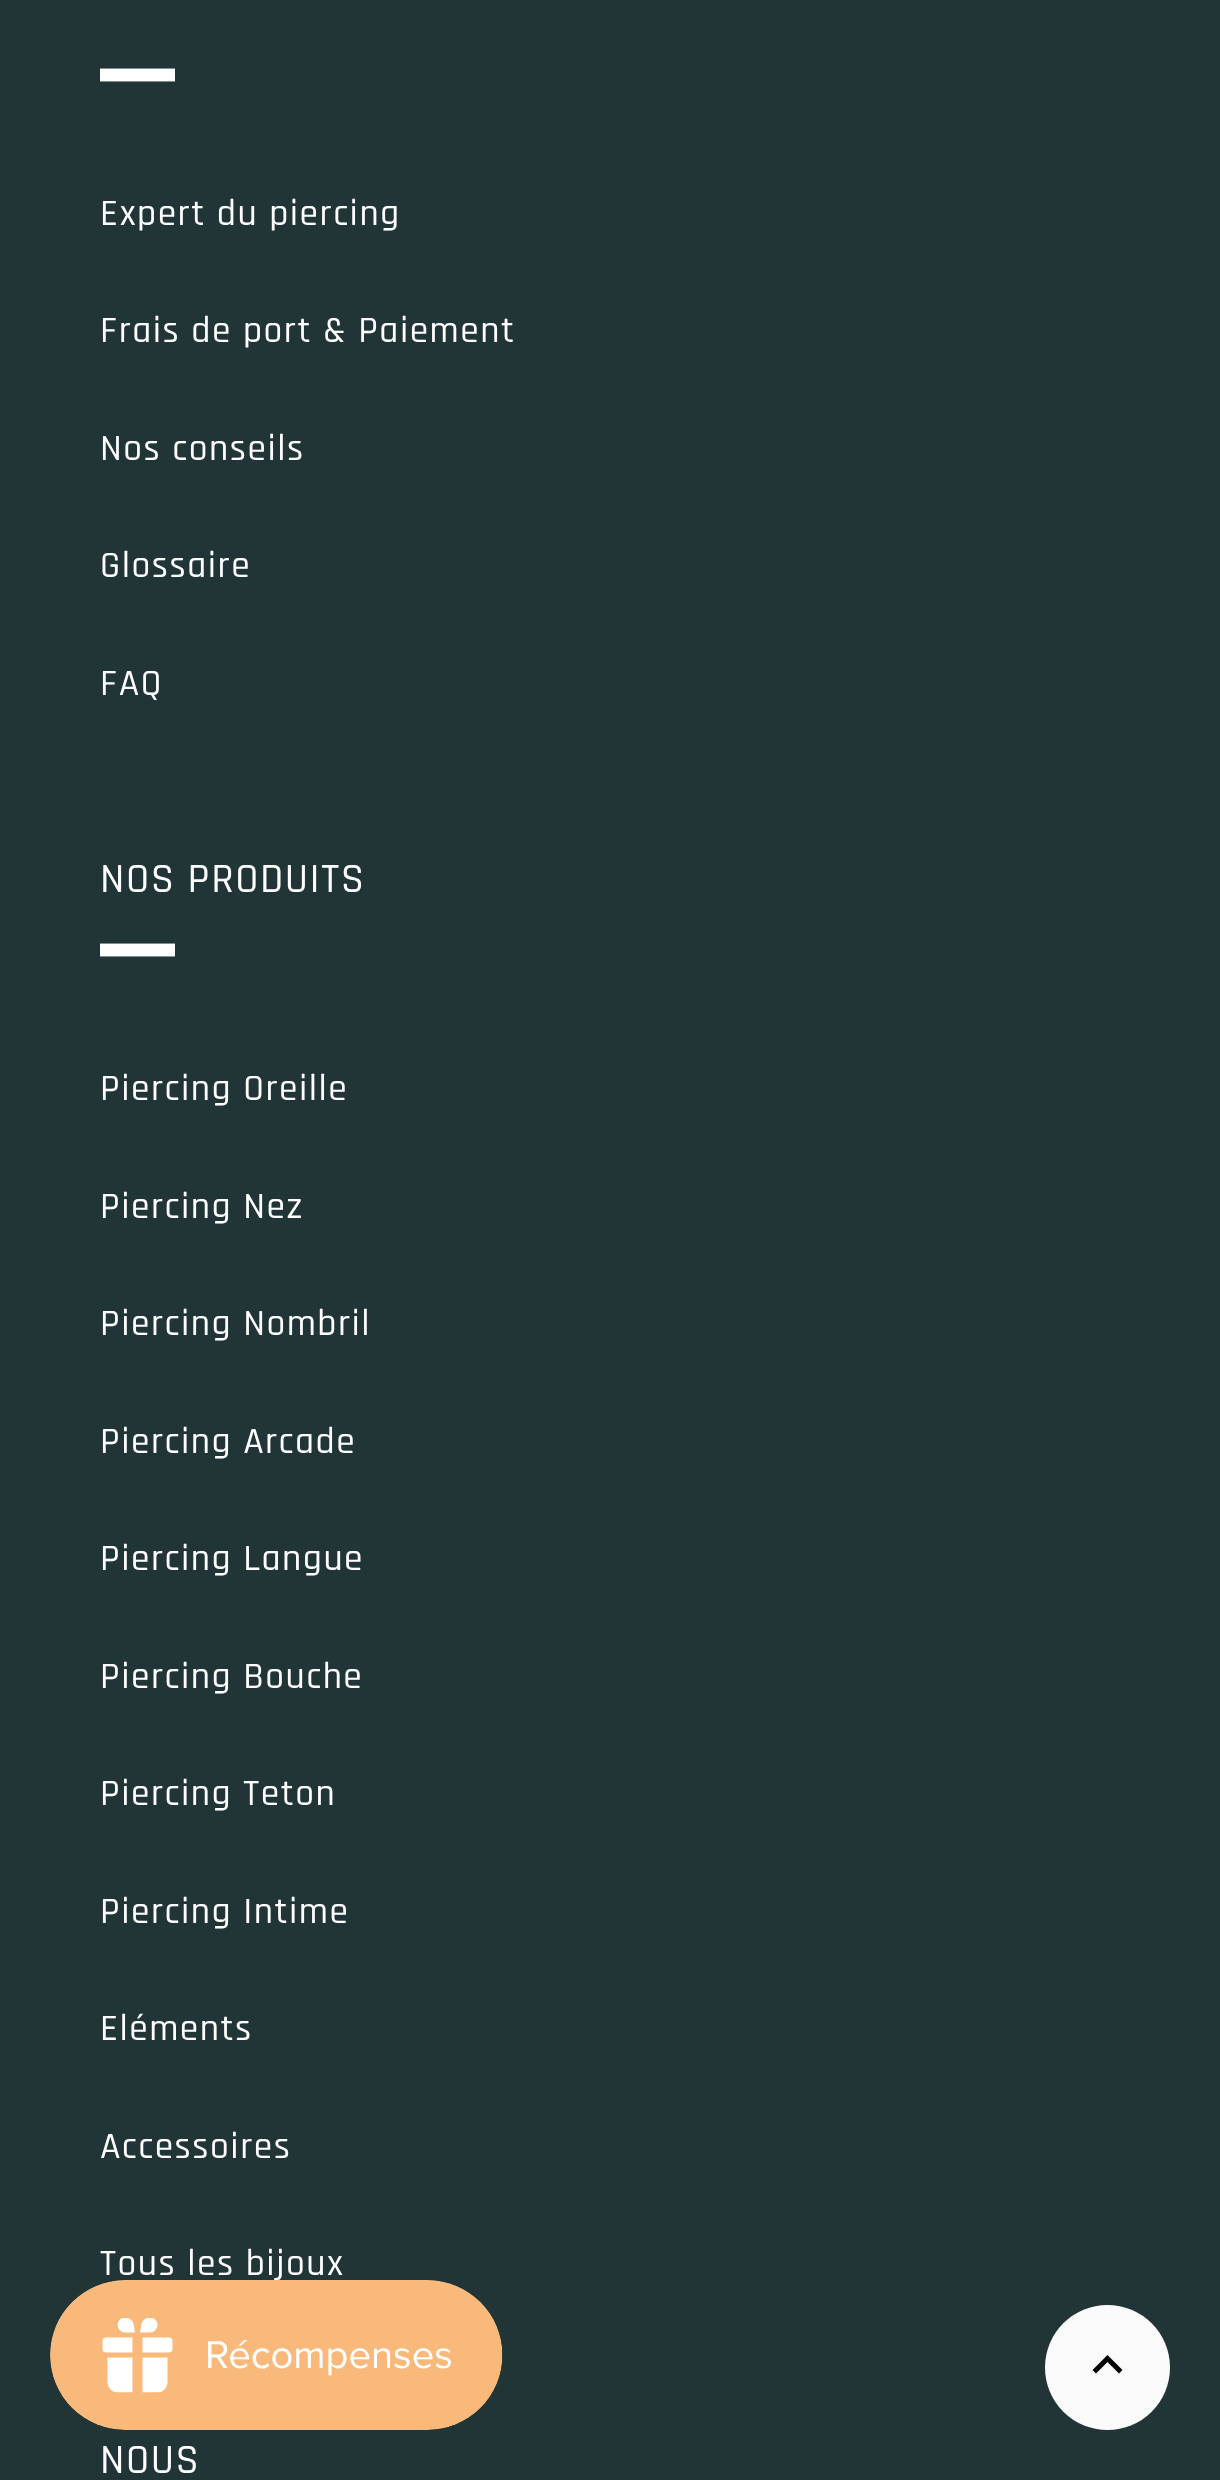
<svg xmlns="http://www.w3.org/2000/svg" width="1220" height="2480">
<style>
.a{font:500 37.5px Rajdhani;letter-spacing:1.5px;fill:#fff}
.b{font:500 42px Rajdhani;letter-spacing:1.5px;fill:#fff}
</style>
<rect width="100%" height="100%" fill="#213537"/>
<path fill="none" stroke="#fff" stroke-width="12.5" d="M100 75h75"/>
<path fill="none" stroke="#fff" stroke-width="12.5" d="M100 75h75"/>
<path fill="none" stroke="#fff" stroke-width="12.5" d="M100 950h75"/>
<path fill="none" stroke="#fff" stroke-width="12.5" d="M100 950h75"/>
<circle fill="#fafafa" cx="1107.5" cy="2367.5" r="62.5"/>
<path fill="#000" d="M1096 2373.5l11.5-11.5l11.5 11.5l3.5-3.5l-15-15l-15 15z"/>
<text class="a" x="100" y="225">Expert du piercing</text>
<text class="a" x="100" y="342">Frais de port &amp; Paiement</text>
<text class="a" x="100" y="460">Nos conseils</text>
<text class="a" x="100" y="577">Glossaire</text>
<text class="a" x="100" y="695">FAQ</text>
<text class="b" x="100" y="892">NOS PRODUITS</text>
<text class="a" x="100" y="1100">Piercing Oreille</text>
<text class="a" x="100" y="1218">Piercing Nez</text>
<text class="a" x="100" y="1335">Piercing Nombril</text>
<text class="a" x="100" y="1453">Piercing Arcade</text>
<text class="a" x="100" y="1570">Piercing Langue</text>
<text class="a" x="100" y="1688">Piercing Bouche</text>
<text class="a" x="100" y="1805">Piercing Teton</text>
<text class="a" x="100" y="1923">Piercing Intime</text>
<text class="a" x="100" y="2040">Eléments</text>
<text class="a" x="100" y="2158">Accessoires</text>
<text class="a" x="100" y="2275">Tous les bijoux</text>
<text class="b" x="100" y="2473">NOUS</text>
<image href="1.png" x="50" y="2280" width="453" height="150"/>
</svg>
